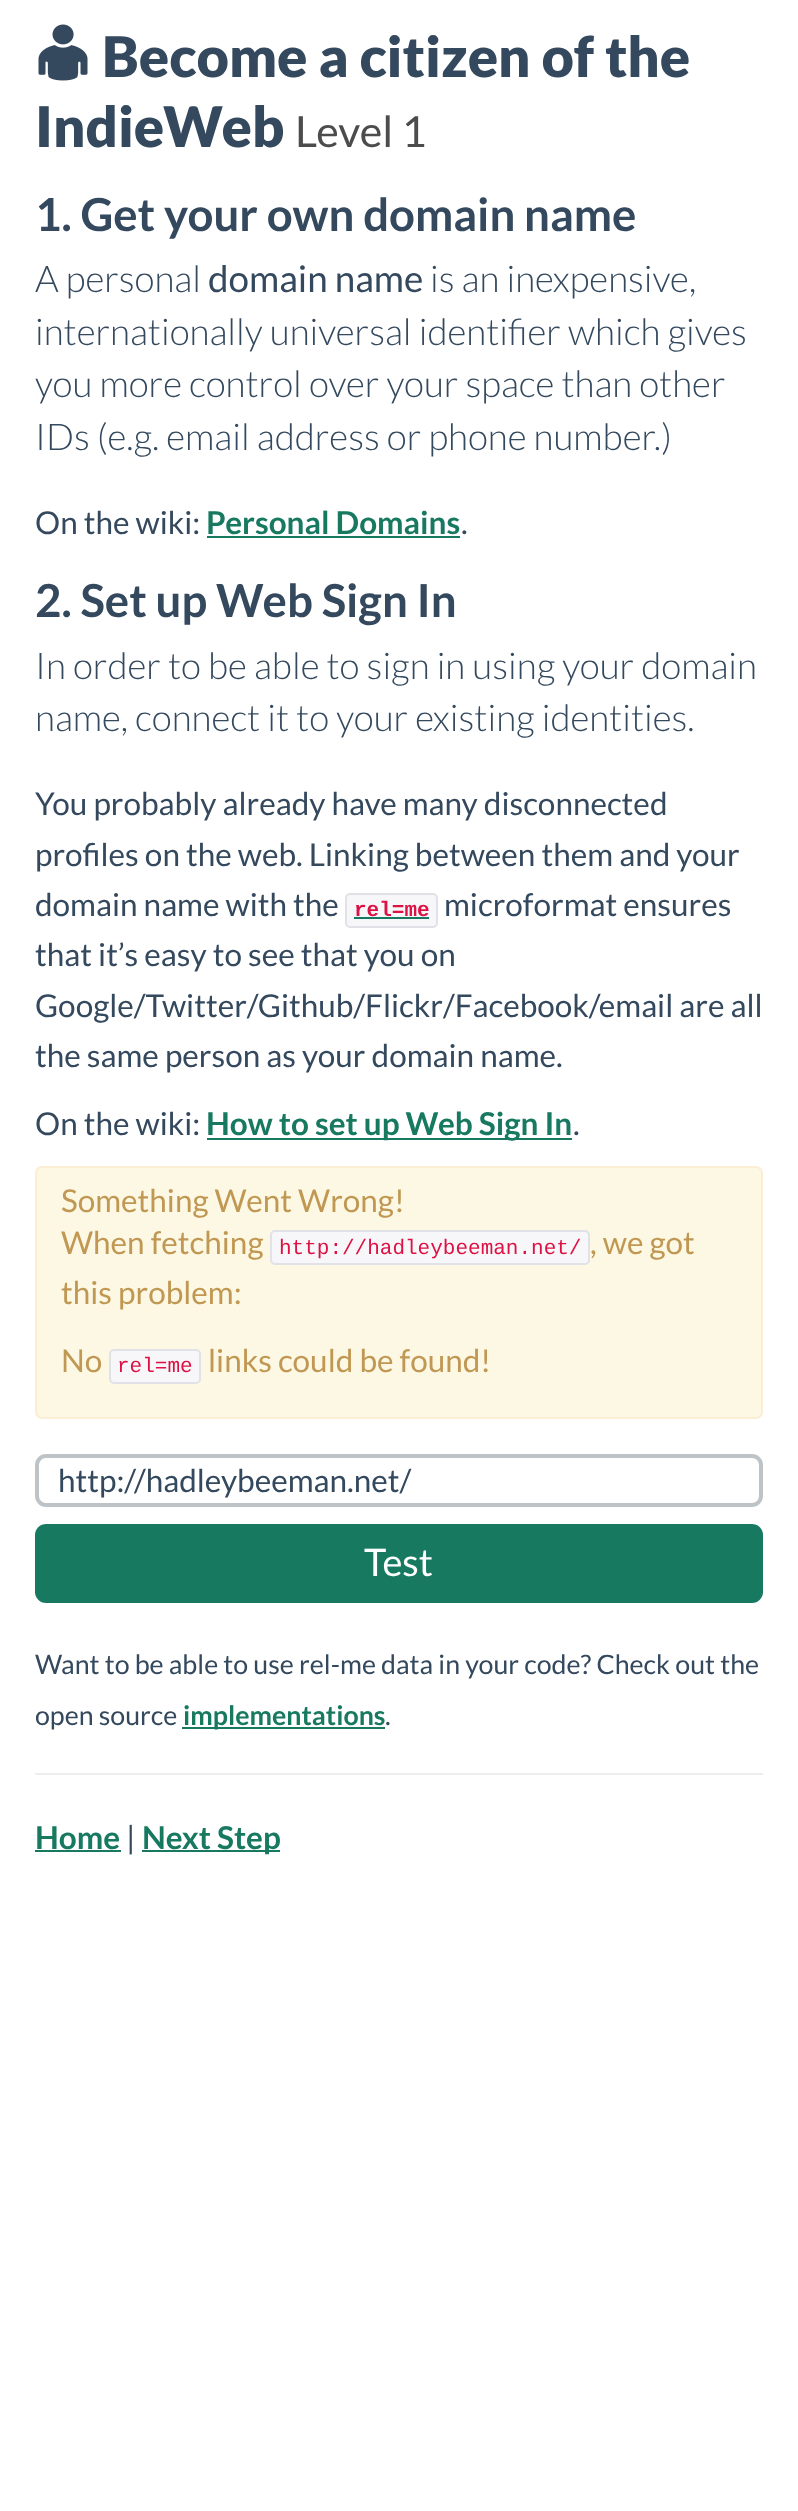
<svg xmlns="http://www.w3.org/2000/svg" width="798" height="2511">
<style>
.a{font:900 56px Lato;fill:#34495e}
.b{font:43px Lato;fill:#4c4c4c}
.c{font:bold 45.5px Lato;fill:#34495e}
.d{font:300 36.75px Lato;fill:#34495e}
.e{font:36.75px Lato;fill:#34495e}
.f{font:31.5px Lato;fill:#34495e}
.g{font:bold 31.5px Lato;fill:#177960}
.h{font:bold 21px Liberation Mono;fill:#d14}
.i{font:31.5px Lato;fill:#c09853}
.j{font:21px Liberation Mono;fill:#d14}
.k{font:38px Lato;fill:#fff}
.l{font:26.75px Lato;fill:#34495e}
.m{font:bold 26.75px Lato;fill:#177960}
</style>
<rect width="100%" height="100%" fill="#fff"/>
<image href="1.png" x="38" y="24" width="50" height="57"/>
<path fill="#177960" d="M207 536h253v2H207z"/>
<rect fill="#f7f7f9" stroke="#e1e1e8" stroke-width="2" x="346" y="894" width="91" height="33" rx="4"/>
<path fill="#177960" d="M354 917h75v2H354z"/>
<path fill="#177960" d="M207 1138h365v2H207z"/>
<rect fill="#fcf8e3" stroke="#fbeed5" stroke-width="2" x="36" y="1167" width="726" height="251" rx="6"/>
<rect fill="#f7f7f9" stroke="#e1e1e8" stroke-width="2" x="271" y="1231" width="318" height="33" rx="4"/>
<rect fill="#f7f7f9" stroke="#e1e1e8" stroke-width="2" x="110" y="1350" width="90" height="33" rx="4"/>
<rect fill="none" stroke="#bdc3c7" stroke-width="4" x="37" y="1456" width="724" height="49" rx="9"/>
<rect fill="#177960" x="35" y="1524" width="728" height="79" rx="11"/>
<path fill="#177960" d="M182 1727h203v2H182z"/>
<path fill="#eee" d="M35 1773h728v2H35z"/>
<path fill="#177960" d="M35 1850h86v2H35z"/>
<path fill="#177960" d="M142 1850h138v2H142z"/>
<text class="a" x="102" y="77">Become a citizen of the</text>
<text class="a" x="35" y="147">IndieWeb</text>
<text class="b" x="295" y="147">Level 1</text>
<text class="c" x="35" y="231">1. Get your own domain name</text>
<text class="d" x="35" y="292">A personal</text>
<text class="e" x="208" y="292">domain name</text>
<text class="d" x="430" y="292">is an inexpensive,</text>
<text class="d" x="35" y="345">internationally universal identifier which gives</text>
<text class="d" x="35" y="397">you more control over your space than other</text>
<text class="d" x="35" y="450">IDs (e.g. email address or phone number.)</text>
<text class="f" x="35" y="534">On the wiki:</text>
<text class="g" x="206" y="534">Personal Domains</text>
<text class="f" x="461" y="534">.</text>
<text class="c" x="35" y="617">2. Set up Web Sign In</text>
<text class="d" x="35" y="679">In order to be able to sign in using your domain</text>
<text class="d" x="35" y="731">name, connect it to your existing identities.</text>
<text class="f" x="35" y="815">You probably already have many disconnected</text>
<text class="f" x="35" y="866">profiles on the web. Linking between them and your</text>
<text class="f" x="35" y="916">domain name with the</text>
<text class="h" x="354" y="916">rel=me</text>
<text class="f" x="444" y="916">microformat ensures</text>
<text class="f" x="35" y="966">that it’s easy to see that you on</text>
<text class="f" x="35" y="1017">Google/Twitter/Github/Flickr/Facebook/email are all</text>
<text class="f" x="35" y="1067">the same person as your domain name.</text>
<text class="f" x="35" y="1135">On the wiki:</text>
<text class="g" x="206" y="1135">How to set up Web Sign In</text>
<text class="f" x="573" y="1135">.</text>
<text class="i" x="61" y="1212">Something Went Wrong!</text>
<text class="i" x="61" y="1254">When fetching</text>
<text class="j" x="279" y="1254">http://hadleybeeman.net/</text>
<text class="i" x="590" y="1254">, we got</text>
<text class="i" x="61" y="1304">this problem:</text>
<text class="i" x="61" y="1372">No</text>
<text class="j" x="117" y="1372">rel=me</text>
<text class="i" x="208" y="1372">links could be found!</text>
<text class="f" x="58" y="1492">http://hadleybeeman.net/</text>
<text class="k" x="364" y="1576">Test</text>
<text class="l" x="35" y="1674">Want to be able to use rel-me data in your code? Check out the</text>
<text class="l" x="35" y="1725">open source</text>
<text class="m" x="183" y="1725">implementations</text>
<text class="l" x="385" y="1725">.</text>
<text class="g" x="35" y="1849">Home</text>
<text class="f" x="126" y="1849">|</text>
<text class="g" x="142" y="1849">Next Step</text>
</svg>
